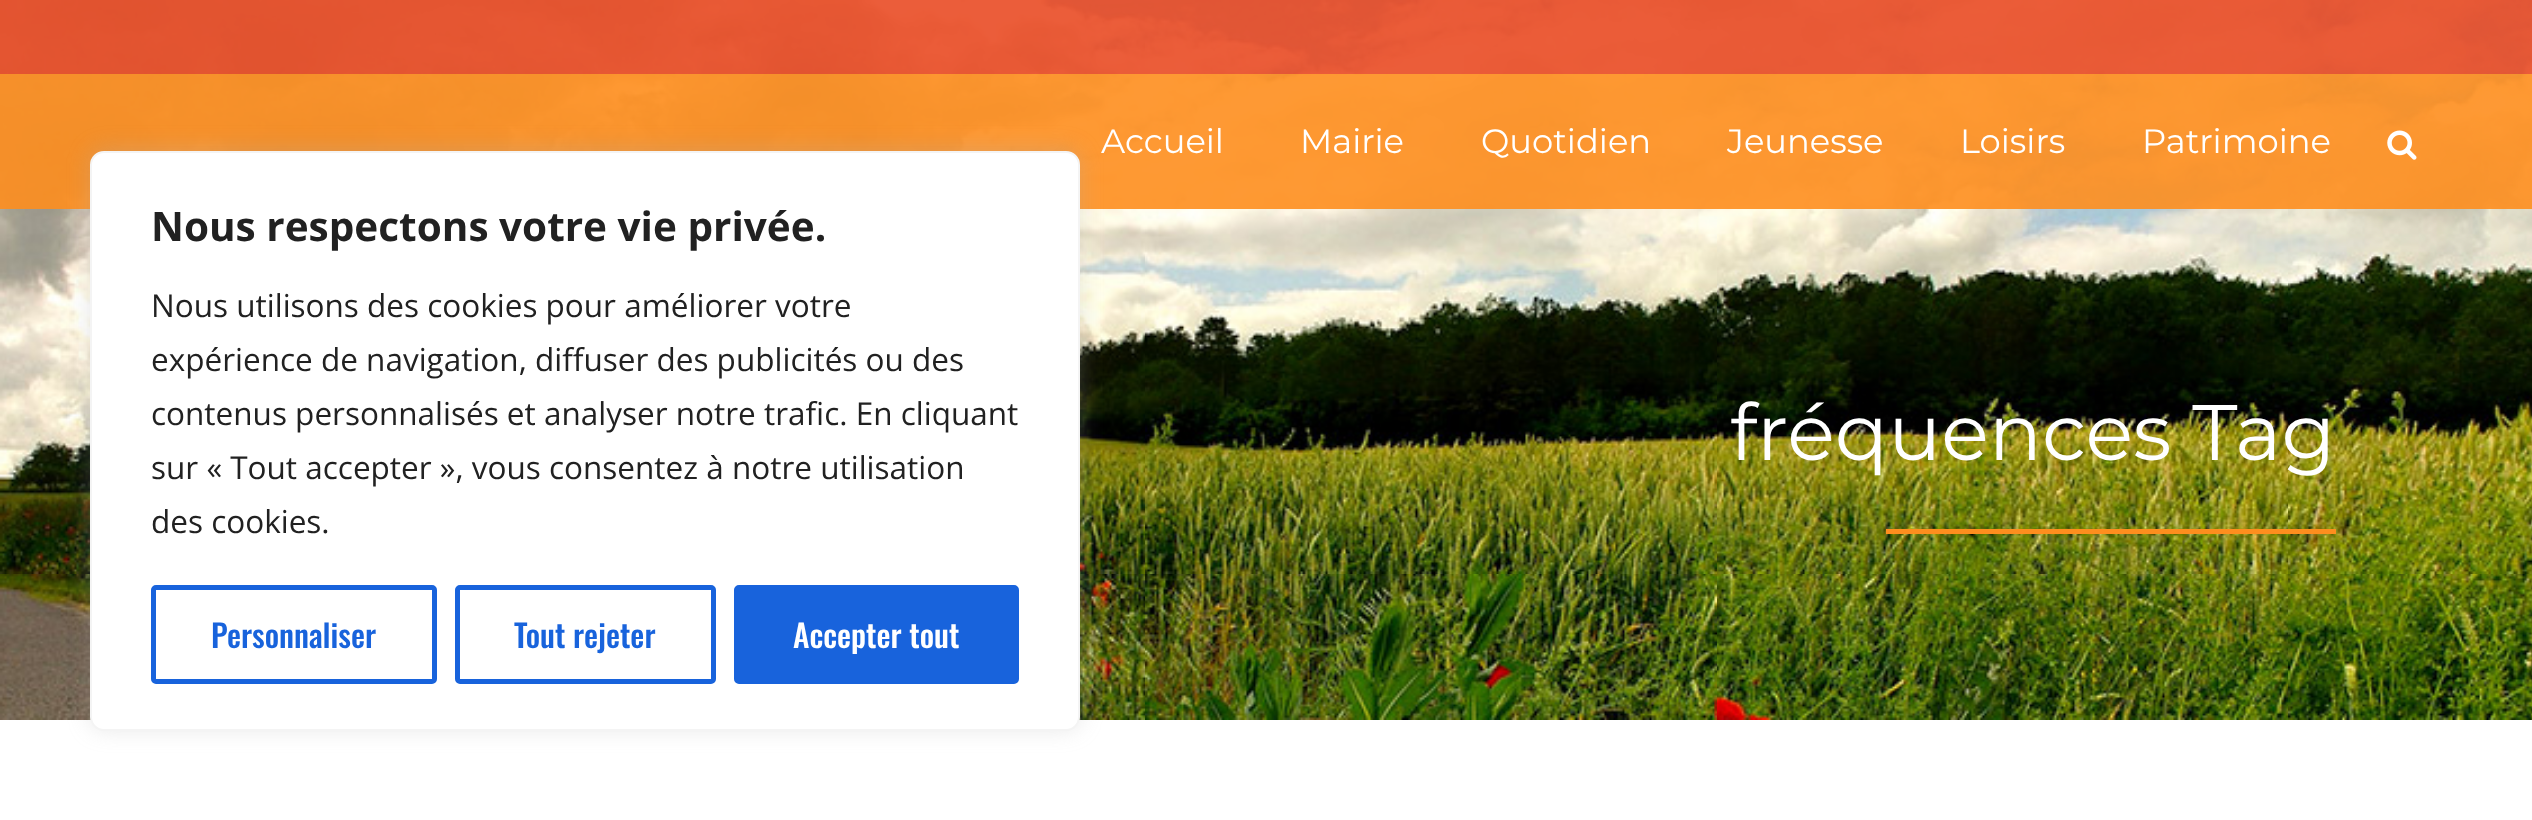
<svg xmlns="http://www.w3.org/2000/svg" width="2532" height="820">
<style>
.a{font:bold 40.5px Open Sans;fill:#212121}
.b{font:31.5px Open Sans;fill:#212121}
.c{font:500 31.5px Oswald;fill:#1863dc}
.d{font:500 31.5px Oswald;fill:#fff}
.e{font:33.75px Montserrat;fill:#fff}
.f{font:78.75px Montserrat;fill:#fff}
</style>
<rect width="100%" height="100%" fill="#fff"/>
<image href="2.png" x="0" y="0" width="2532" height="720"/>
<path fill="#fe8e1ee6" d="M0 74h2532v135H0z"/>
<rect fill="#acabab4d" filter="blur(11px)" x="90" y="149" width="990" height="580" rx="14"/>
<rect fill="#fff" stroke="#f4f4f4" stroke-width="2" x="91" y="152" width="988" height="578" rx="13"/>
<rect fill="none" stroke="#1863dc" stroke-width="5" x="153.5" y="587.5" width="281" height="94" rx="2.5"/>
<rect fill="none" stroke="#1863dc" stroke-width="5" x="457.5" y="587.5" width="256" height="94" rx="2.5"/>
<rect fill="#1863dc" stroke="#1863dc" stroke-width="5" x="736.5" y="587.5" width="280" height="94" rx="2.5"/>
<path fill="#e94b25e6" d="M0 0h2532v74H0z"/>
<image href="1.png" x="2387" y="130" width="30" height="30"/>
<path fill="#fe8e1e" d="M1886 529h450v5H1886z"/>
<text class="a" x="151" y="241">Nous respectons votre vie privée.</text>
<text class="b" x="151" y="317">Nous utilisons des cookies pour améliorer votre</text>
<text class="b" x="151" y="371">expérience de navigation, diffuser des publicités ou des</text>
<text class="b" x="151" y="425">contenus personnalisés et analyser notre trafic. En cliquant</text>
<text class="b" x="151" y="479">sur « Tout accepter », vous consentez à notre utilisation</text>
<text class="b" x="151" y="533">des cookies.</text>
<text class="c" x="211" y="648">Personnaliser</text>
<text class="c" x="514" y="648">Tout rejeter</text>
<text class="d" x="793" y="648">Accepter tout</text>
<text class="e" x="1101" y="153">Accueil</text>
<text class="e" x="1300" y="153">Mairie</text>
<text class="e" x="1481" y="153">Quotidien</text>
<text class="e" x="1727" y="153">Jeunesse</text>
<text class="e" x="1960" y="153">Loisirs</text>
<text class="e" x="2142" y="153">Patrimoine</text>
<text class="f" x="1730" y="460">fréquences Tag</text>
</svg>
